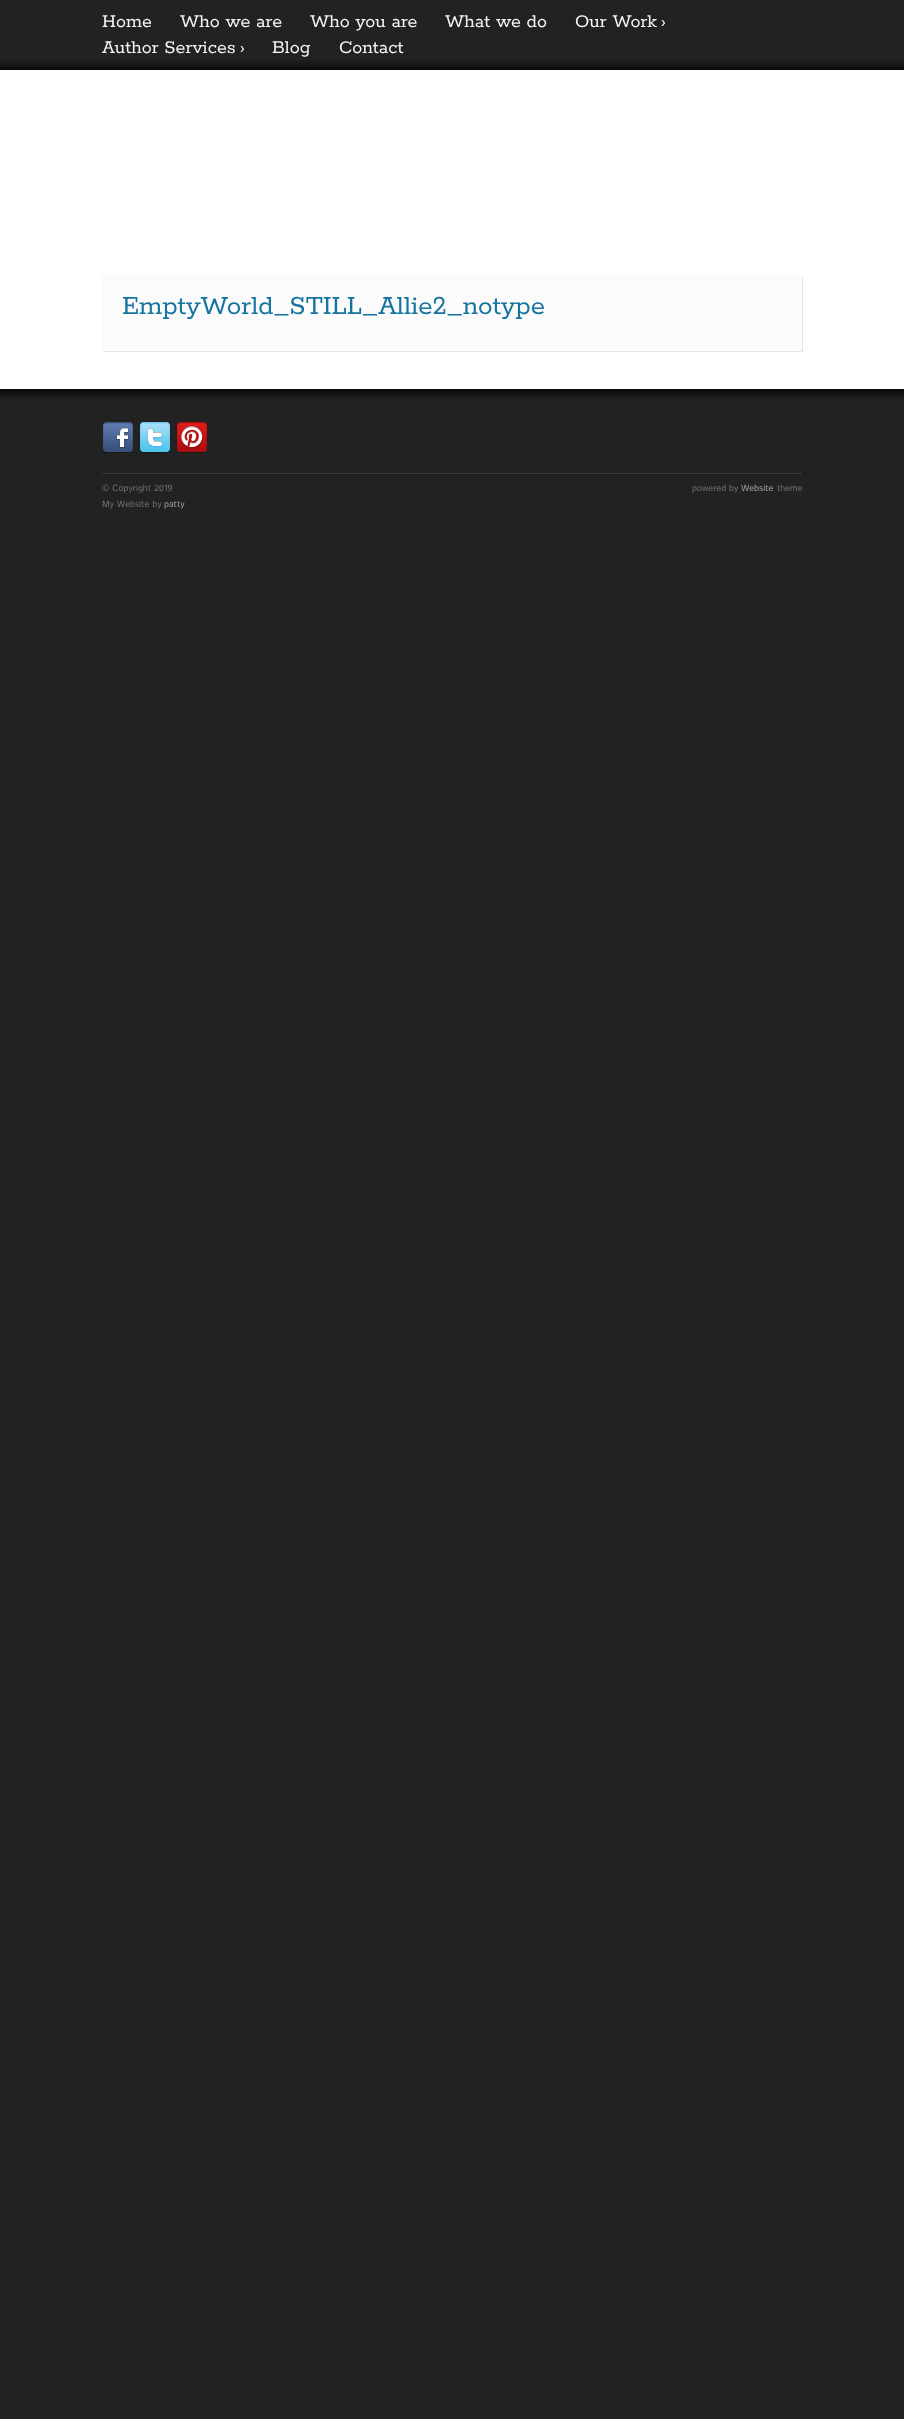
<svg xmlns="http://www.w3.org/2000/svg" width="904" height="2419">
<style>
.a{font:600 20px Rokkitt;fill:#f5f5f5}
.b{font:600 29px Rokkitt;fill:#15759e}
.c{font:9px Istok Web;fill:#727272}
.d{font:9px Istok Web;fill:#a2a2a2}
</style>
<rect width="100%" height="100%" fill="#222"/>
<image href="1.png" x="0" y="60" width="904" height="10"/>
<path fill="#fff" d="M0 70h904v319H0z"/>
<path fill="#0000001a" filter="blur(0.5px)" d="M103 276h700v76H103z"/>
<path fill="#fbfbfb" d="M102 275h700v76H102z"/>
<image href="2.png" x="0" y="389" width="904" height="10"/>
<image href="3.png" x="103" y="422" width="30" height="31"/>
<image href="4.png" x="140" y="422" width="30" height="31"/>
<image href="5.png" x="177" y="422" width="30" height="31"/>
<path fill="none" stroke="#505050" stroke-dasharray="1 1" d="M102 473.5h700"/>
<text class="a" x="102" y="27">Home</text>
<text class="a" x="180" y="27">Who we are</text>
<text class="a" x="310" y="27">Who you are</text>
<text class="a" x="445" y="27">What we do</text>
<text class="a" x="575" y="27">Our Work</text>
<text class="a" x="661" y="27">›</text>
<text class="a" x="102" y="53">Author Services</text>
<text class="a" x="240" y="53">›</text>
<text class="a" x="272" y="53">Blog</text>
<text class="a" x="339" y="53">Contact</text>
<text class="b" x="122" y="314">EmptyWorld_STILL_Allie2_notype</text>
<text class="c" x="102" y="491">© Copyright 2019</text>
<text class="c" x="102" y="507">My Website by</text>
<text class="d" x="164" y="507">patty</text>
<text class="c" x="692" y="491">powered by</text>
<text class="d" x="741" y="491">Website</text>
<text class="c" x="777" y="491">theme</text>
</svg>
